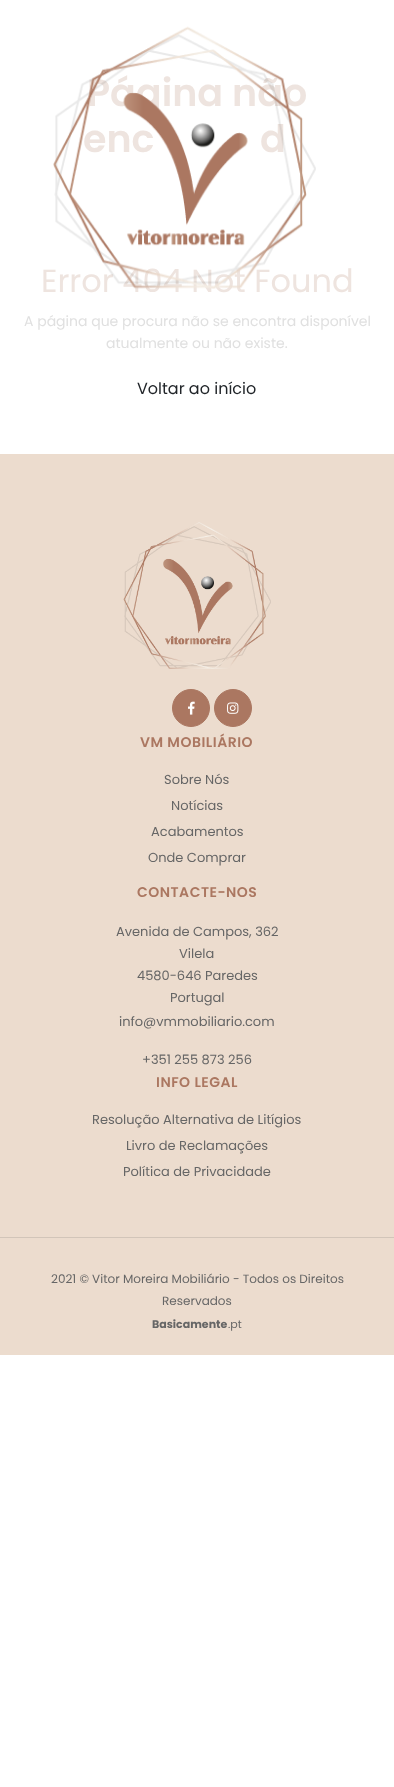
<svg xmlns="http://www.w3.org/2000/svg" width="394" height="1787">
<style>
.a{font:600 38px Poppins;fill:#eee4df}
.b{font:32px Poppins;fill:#eee4df}
.c{font:14px Poppins;fill:#e0e0e0}
.d{font:16px Poppins;fill:#212529}
.e{font:600 14px Poppins;letter-spacing:0.5px;fill:#ab7761}
.f{font:13px Poppins;fill:#666}
.g{font:12px Poppins;fill:#666}
.h{font:bold 11px Poppins;fill:#666}
.i{font:11px Poppins;fill:#666}
</style>
<rect width="100%" height="100%" fill="#fff"/>
<path fill="#ecdcce" d="M0 454h394v783H0z"/>
<image href="2.png" x="123" y="522" width="148" height="147"/>
<circle fill="#ab7761" stroke="#ab7761" cx="191" cy="708" r="18.5"/>
<image href="3.png" x="188" y="701" width="7" height="14"/>
<circle fill="#ab7761" stroke="#ab7761" cx="233" cy="708" r="18.5"/>
<image href="4.png" x="227" y="702" width="12" height="12"/>
<path fill="#ecdcce" d="M0 1238h394v117H0z"/>
<path fill="#d2c5b9" d="M0 1237h394v1H0z"/>
<text class="a" x="87" y="106">Página não</text>
<text class="a" x="83" y="152">enc</text>
<text class="a" x="260" y="152">d</text>
<text class="b" x="41" y="292">Error 404 Not Found</text>
<image href="1.png" x="53" y="26" width="263" height="263"/>
<text class="c" x="24" y="326">A página que procura não se encontra disponível</text>
<text class="c" x="106" y="348">atualmente ou não existe.</text>
<text class="d" x="137" y="394">Voltar ao início</text>
<text class="e" x="140" y="747">VM MOBILIÁRIO</text>
<text class="f" x="164" y="784">Sobre Nós</text>
<text class="f" x="171" y="810">Notícias</text>
<text class="f" x="151" y="836">Acabamentos</text>
<text class="f" x="148" y="862">Onde Comprar</text>
<text class="e" x="137" y="897">CONTACTE-NOS</text>
<text class="f" x="116" y="936">Avenida de Campos, 362</text>
<text class="f" x="179" y="958">Vilela</text>
<text class="f" x="137" y="980">4580-646 Paredes</text>
<text class="f" x="170" y="1002">Portugal</text>
<text class="f" x="119" y="1026">info@vmmobiliario.com</text>
<text class="f" x="142" y="1064">+351 255 873 256</text>
<text class="e" x="156" y="1087">INFO LEGAL</text>
<text class="f" x="92" y="1124">Resolução Alternativa de Litígios</text>
<text class="f" x="126" y="1150">Livro de Reclamações</text>
<text class="f" x="123" y="1176">Política de Privacidade</text>
<text class="g" x="51" y="1283">2021 © Vitor Moreira Mobiliário - Todos os Direitos</text>
<text class="g" x="162" y="1305">Reservados</text>
<text class="h" x="152" y="1328">Basicamente</text>
<text class="i" x="228" y="1328">.pt</text>
</svg>
